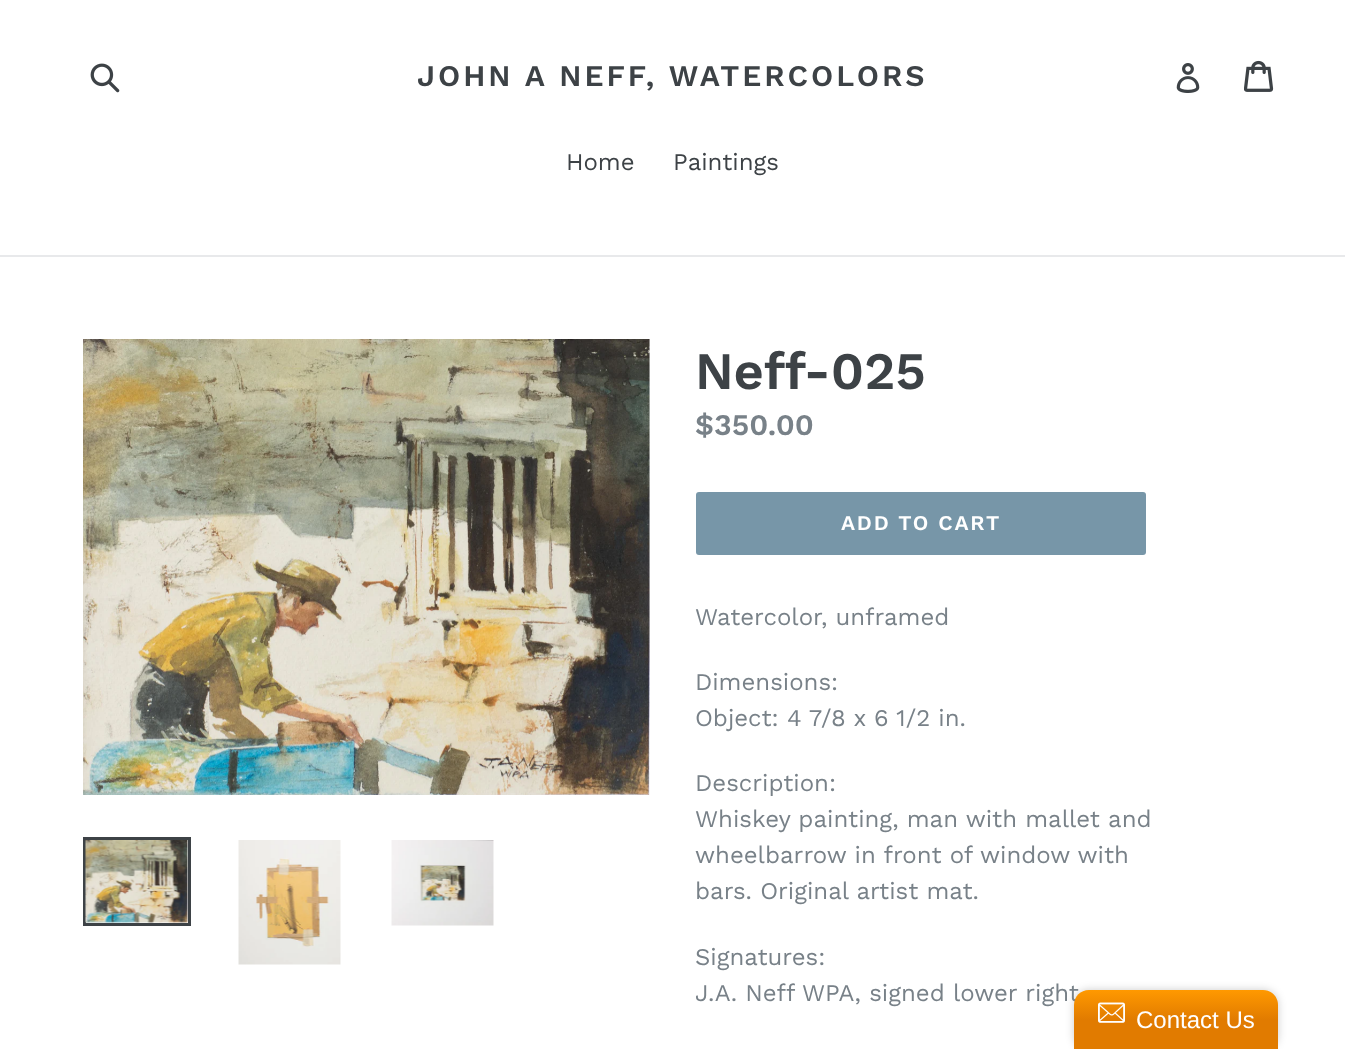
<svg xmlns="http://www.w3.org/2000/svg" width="1345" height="1049">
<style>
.a{font:600 30px Work Sans;letter-spacing:3px;fill:#3d4246}
.b{font:24px Work Sans;fill:#3d4246}
.c{font:600 52.5px Work Sans;fill:#3d4246}
.d{font:600 30px Work Sans;fill:#788188}
.e{font:600 21px Work Sans;letter-spacing:1.75px;fill:#fff}
.f{font:24px Work Sans;fill:#788188}
.g{font:24px Liberation Sans;fill:#fff}
</style>
<defs>
<linearGradient id="g1" gradientUnits="userSpaceOnUse" x1="1176" y1="990" x2="1176" y2="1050"><stop offset="0" stop-color="#f90"/><stop offset="0.5" stop-color="#e17b00"/></linearGradient>
</defs>
<rect width="100%" height="100%" fill="#fff"/>
<image href="1.png" x="90" y="63" width="30" height="30"/>
<image href="2.png" x="1176" y="63" width="24" height="30"/>
<image href="3.png" x="1244" y="60" width="30" height="32"/>
<path fill="#e8e9eb" d="M0 255h1345v2H0z"/>
<image href="4.png" x="83" y="339" width="567" height="456"/>
<path fill="none" stroke="#3d4246" stroke-width="3" d="M84.5 838.5h105v86H84.5z"/>
<image href="5.png" x="85" y="840" width="103" height="83"/>
<image href="6.png" x="238" y="840" width="103" height="125"/>
<image href="7.png" x="391" y="840" width="103" height="86"/>
<rect fill="#7796a8" x="696" y="492" width="450" height="63" rx="3"/>
<rect fill="#00000033" filter="blur(4px)" x="1074" y="990" width="204" height="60" rx="15"/>
<text class="a" x="417" y="86">JOHN A NEFF, WATERCOLORS</text>
<text class="b" x="566" y="170">Home</text>
<text class="b" x="673" y="170">Paintings</text>
<text class="c" x="695" y="389">Neff-025</text>
<text class="d" x="695" y="435">$350.00</text>
<text class="e" x="841" y="530">ADD TO CART</text>
<text class="f" x="695" y="625">Watercolor, unframed</text>
<text class="f" x="695" y="690">Dimensions:</text>
<text class="f" x="695" y="726">Object: 4 7/8 x 6 1/2 in.</text>
<text class="f" x="695" y="791">Description:</text>
<text class="f" x="695" y="827">Whiskey painting, man with mallet and</text>
<text class="f" x="695" y="863">wheelbarrow in front of window with</text>
<text class="f" x="695" y="899">bars. Original artist mat.</text>
<text class="f" x="695" y="965">Signatures:</text>
<text class="f" x="695" y="1001">J.A. Neff WPA, signed lower right</text>
<path fill="url(#g1)" d="M1089 990h174c8.5 0 15 6.5 15 15v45h-204v-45c0-8.5 6.5-15 15-15z"/>
<image href="8.png" x="1098" y="1002" width="27" height="21"/>
<text class="g" x="1136" y="1028">Contact Us</text>
</svg>
